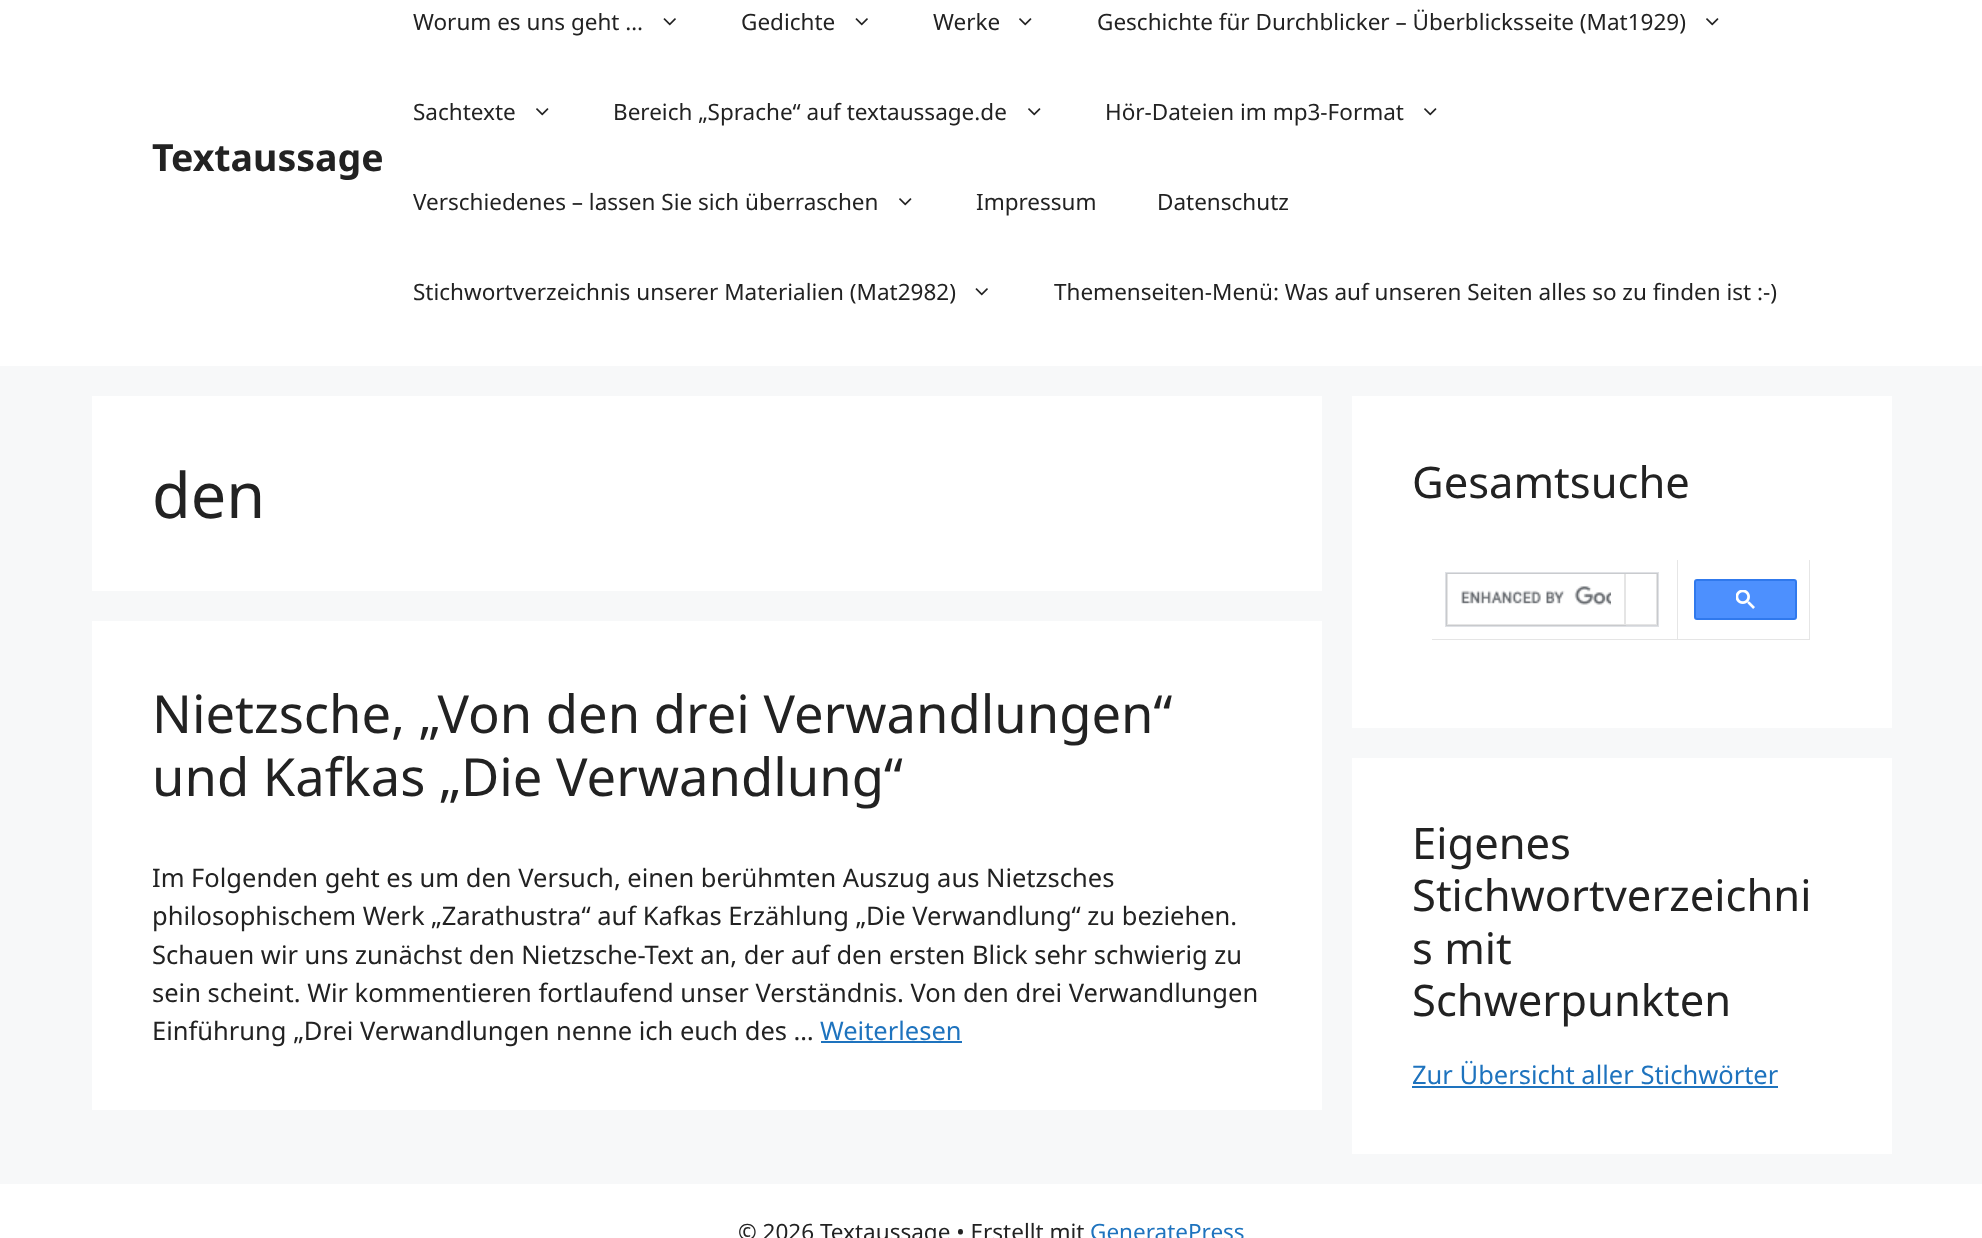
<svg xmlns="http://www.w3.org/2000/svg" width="1982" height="1238">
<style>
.a{font:bold 37.5px Noto Sans;fill:#222}
.b{font:22.5px Noto Sans;fill:#222}
.c{font:63px Noto Sans;fill:#222}
.d{font:52.5px Noto Sans;fill:#222}
.e{font:25.5px Noto Sans;fill:#222}
.f{font:25.5px Noto Sans;fill:#1e73be}
.g{font:43.5px Noto Sans;fill:#222}
.h{font:22.5px Noto Sans;fill:#1e73be}
</style>
<rect width="100%" height="100%" fill="#f7f8f9"/>
<path fill="#fff" d="M0 0h1982v366H0z"/>
<image href="1.png" x="663" y="18" width="13" height="8"/>
<image href="1.png" x="855" y="18" width="13" height="8"/>
<image href="2.png" x="1019" y="18" width="13" height="8"/>
<image href="2.png" x="1706" y="18" width="13" height="8"/>
<image href="2.png" x="536" y="108" width="13" height="8"/>
<image href="2.png" x="1028" y="108" width="13" height="8"/>
<image href="2.png" x="1424" y="108" width="13" height="8"/>
<image href="2.png" x="899" y="198" width="13" height="8"/>
<image href="1.png" x="975" y="288" width="13" height="8"/>
<path fill="#fff" d="M92 396h1230v195H92z"/>
<path fill="#fff" d="M92 621h1230v489H92z"/>
<path fill="#1e73be" d="M821 1041h141v2H821z"/>
<path fill="#fff" d="M1352 396h540v332H1352z"/>
<path fill="#e6e6e6" d="M1678 560v80l-1-1v-79z"/>
<path fill="#0000001a" d="M1678 640h-246v-1h245z"/>
<path fill="none" stroke="#dfe1e5" stroke-width="2" d="M1446 573h212v53H1446z"/>
<path fill="#c9cbce" d="M1446 573h212v1h-210z"/>
<path fill="#0000001a" d="M1446 626v-53l2 1v52z"/>
<path fill="#0000001a" d="M1626 574v52l-2-2v-50z"/>
<path fill="#0000001a" d="M1626 626h-178v-2h176z"/>
<image href="3.png" x="1461" y="586" width="150" height="19"/>
<path fill="#0000001a" d="M1658 574v52l-2-2v-50z"/>
<path fill="#0000001a" d="M1657.5 625.5h-31.5v-1.5h30z"/>
<path fill="#e6e6e6" d="M1810 560v80l-1-1v-79z"/>
<path fill="#0000001a" d="M1810 640h-132v-1h131z"/>
<rect fill="#4d90fe" stroke="#3079ed" stroke-width="2" x="1695" y="580" width="101" height="39" rx="2"/>
<image href="4.png" x="1736" y="590" width="19" height="19"/>
<path fill="#fff" d="M1352 758h540v396H1352z"/>
<path fill="#1e73be" d="M1412 1086h366v2H1412z"/>
<path fill="#fff" d="M0 1184h1982v54H0z"/>
<text class="a" x="152" y="171">Textaussage</text>
<text class="b" x="413" y="30">Worum es uns geht …</text>
<text class="b" x="741" y="30">Gedichte</text>
<text class="b" x="933" y="30">Werke</text>
<text class="b" x="1097" y="30">Geschichte für Durchblicker – Überblicksseite (Mat1929)</text>
<text class="b" x="413" y="120">Sachtexte</text>
<text class="b" x="613" y="120">Bereich „Sprache“ auf textaussage.de</text>
<text class="b" x="1105" y="120">Hör-Dateien im mp3-Format</text>
<text class="b" x="413" y="210">Verschiedenes – lassen Sie sich überraschen</text>
<text class="b" x="976" y="210">Impressum</text>
<text class="b" x="1157" y="210">Datenschutz</text>
<text class="b" x="413" y="300">Stichwortverzeichnis unserer Materialien (Mat2982)</text>
<text class="b" x="1054" y="300">Themenseiten-Menü: Was auf unseren Seiten alles so zu finden ist :-)</text>
<text class="c" x="152" y="518">den</text>
<text class="d" x="152" y="733">Nietzsche, „Von den drei Verwandlungen“</text>
<text class="d" x="152" y="796">und Kafkas „Die Verwandlung“</text>
<text class="e" x="152" y="887">Im Folgenden geht es um den Versuch, einen berühmten Auszug aus Nietzsches</text>
<text class="e" x="152" y="925">philosophischem Werk „Zarathustra“ auf Kafkas Erzählung „Die Verwandlung“ zu beziehen.</text>
<text class="e" x="152" y="964">Schauen wir uns zunächst den Nietzsche-Text an, der auf den ersten Blick sehr schwierig zu</text>
<text class="e" x="152" y="1002">sein scheint. Wir kommentieren fortlaufend unser Verständnis. Von den drei Verwandlungen</text>
<text class="e" x="152" y="1040">Einführung „Drei Verwandlungen nenne ich euch des …</text>
<text class="f" x="820" y="1040">Weiterlesen</text>
<text class="g" x="1412" y="498">Gesamtsuche</text>
<text class="g" x="1412" y="859">Eigenes</text>
<text class="g" x="1412" y="911">Stichwortverzeichni</text>
<text class="g" x="1412" y="964">s mit</text>
<text class="g" x="1412" y="1016">Schwerpunkten</text>
<text class="f" x="1412" y="1084">Zur Übersicht aller Stichwörter</text>
<text class="b" x="738" y="1240">© 2026 Textaussage • Erstellt mit</text>
<text class="h" x="1090" y="1240">GeneratePress</text>
</svg>
